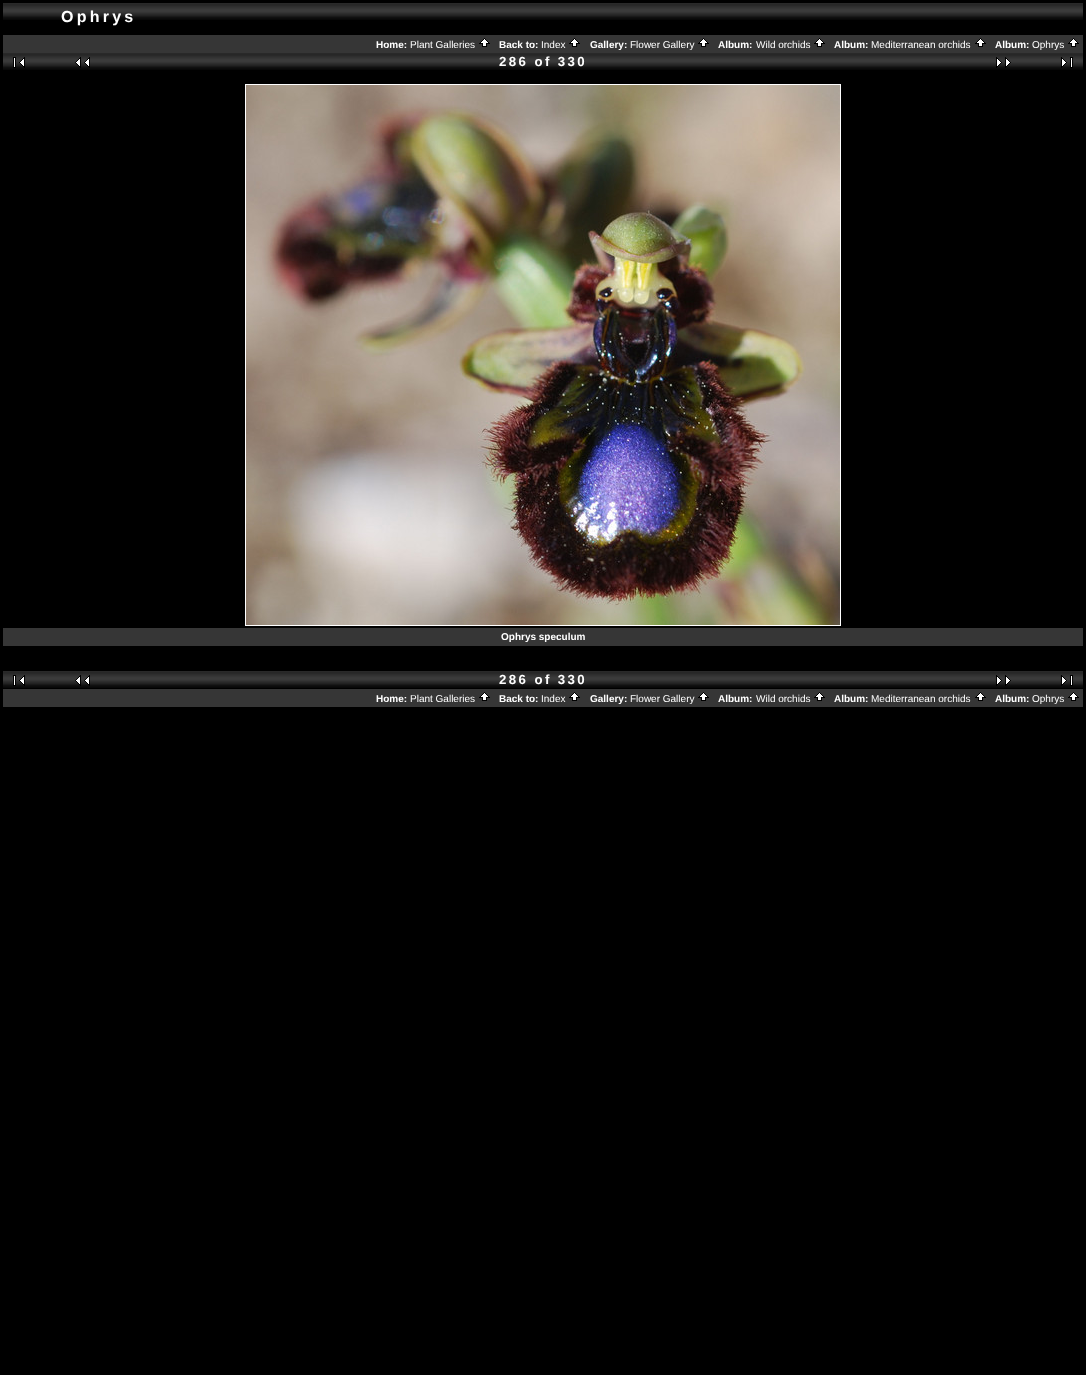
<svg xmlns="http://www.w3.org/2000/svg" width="1086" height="1375">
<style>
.a{font:bold 16px Liberation Sans;letter-spacing:3.25px;fill:#fff}
.b{font:bold 10px Liberation Sans;fill:#fff}
.c{font:10px Liberation Sans;fill:#fff}
.d{font:bold 13.25px Liberation Sans;letter-spacing:2.4px;fill:#fff}
</style>
<rect width="100%" height="100%" fill="#000"/>
<image href="1.png" x="3" y="3" width="1080" height="17"/>
<path fill="#363636" d="M3 35h1080v18H3z"/>
<image href="2.png" x="479" y="38" width="11" height="9"/>
<image href="2.png" x="569" y="38" width="11" height="9"/>
<image href="2.png" x="698" y="38" width="11" height="9"/>
<image href="2.png" x="814" y="38" width="11" height="9"/>
<image href="2.png" x="975" y="38" width="11" height="9"/>
<image href="2.png" x="1068" y="38" width="11" height="9"/>
<image href="1.png" x="3" y="53" width="1080" height="17"/>
<image href="3.png" x="13" y="57" width="12" height="11"/>
<image href="4.png" x="75" y="57" width="15" height="11"/>
<image href="5.png" x="996" y="57" width="15" height="11"/>
<image href="6.png" x="1061" y="57" width="12" height="11"/>
<path fill="#fff" d="M245 84h596v1H245z"/>
<path fill="#fff" d="M245 85h1v540H245z"/>
<image href="7.png" x="246" y="85" width="594" height="540"/>
<path fill="#fff" d="M840 85h1v540H840z"/>
<path fill="#fff" d="M245 625h596v1H245z"/>
<path fill="#363636" d="M3 628h1080v18H3z"/>
<image href="1.png" x="3" y="671" width="1080" height="17"/>
<image href="3.png" x="13" y="675" width="12" height="11"/>
<image href="4.png" x="75" y="675" width="15" height="11"/>
<image href="5.png" x="996" y="675" width="15" height="11"/>
<image href="6.png" x="1061" y="675" width="12" height="11"/>
<path fill="#363636" d="M3 689h1080v18H3z"/>
<image href="2.png" x="479" y="692" width="11" height="9"/>
<image href="2.png" x="569" y="692" width="11" height="9"/>
<image href="2.png" x="698" y="692" width="11" height="9"/>
<image href="2.png" x="814" y="692" width="11" height="9"/>
<image href="2.png" x="975" y="692" width="11" height="9"/>
<image href="2.png" x="1068" y="692" width="11" height="9"/>
<text class="a" x="61" y="22">Ophrys</text>
<text class="b" x="376" y="48">Home:</text>
<text class="c" x="410" y="48">Plant Galleries</text>
<text class="b" x="499" y="48">Back to:</text>
<text class="c" x="541" y="48">Index</text>
<text class="b" x="590" y="48">Gallery:</text>
<text class="c" x="630" y="48">Flower Gallery</text>
<text class="b" x="718" y="48">Album:</text>
<text class="c" x="756" y="48">Wild orchids</text>
<text class="b" x="834" y="48">Album:</text>
<text class="c" x="871" y="48">Mediterranean orchids</text>
<text class="b" x="995" y="48">Album:</text>
<text class="c" x="1032" y="48">Ophrys</text>
<text class="d" x="499" y="66">286 of 330</text>
<text class="b" x="501" y="640">Ophrys speculum</text>
<text class="d" x="499" y="684">286 of 330</text>
<text class="b" x="376" y="702">Home:</text>
<text class="c" x="410" y="702">Plant Galleries</text>
<text class="b" x="499" y="702">Back to:</text>
<text class="c" x="541" y="702">Index</text>
<text class="b" x="590" y="702">Gallery:</text>
<text class="c" x="630" y="702">Flower Gallery</text>
<text class="b" x="718" y="702">Album:</text>
<text class="c" x="756" y="702">Wild orchids</text>
<text class="b" x="834" y="702">Album:</text>
<text class="c" x="871" y="702">Mediterranean orchids</text>
<text class="b" x="995" y="702">Album:</text>
<text class="c" x="1032" y="702">Ophrys</text>
</svg>
